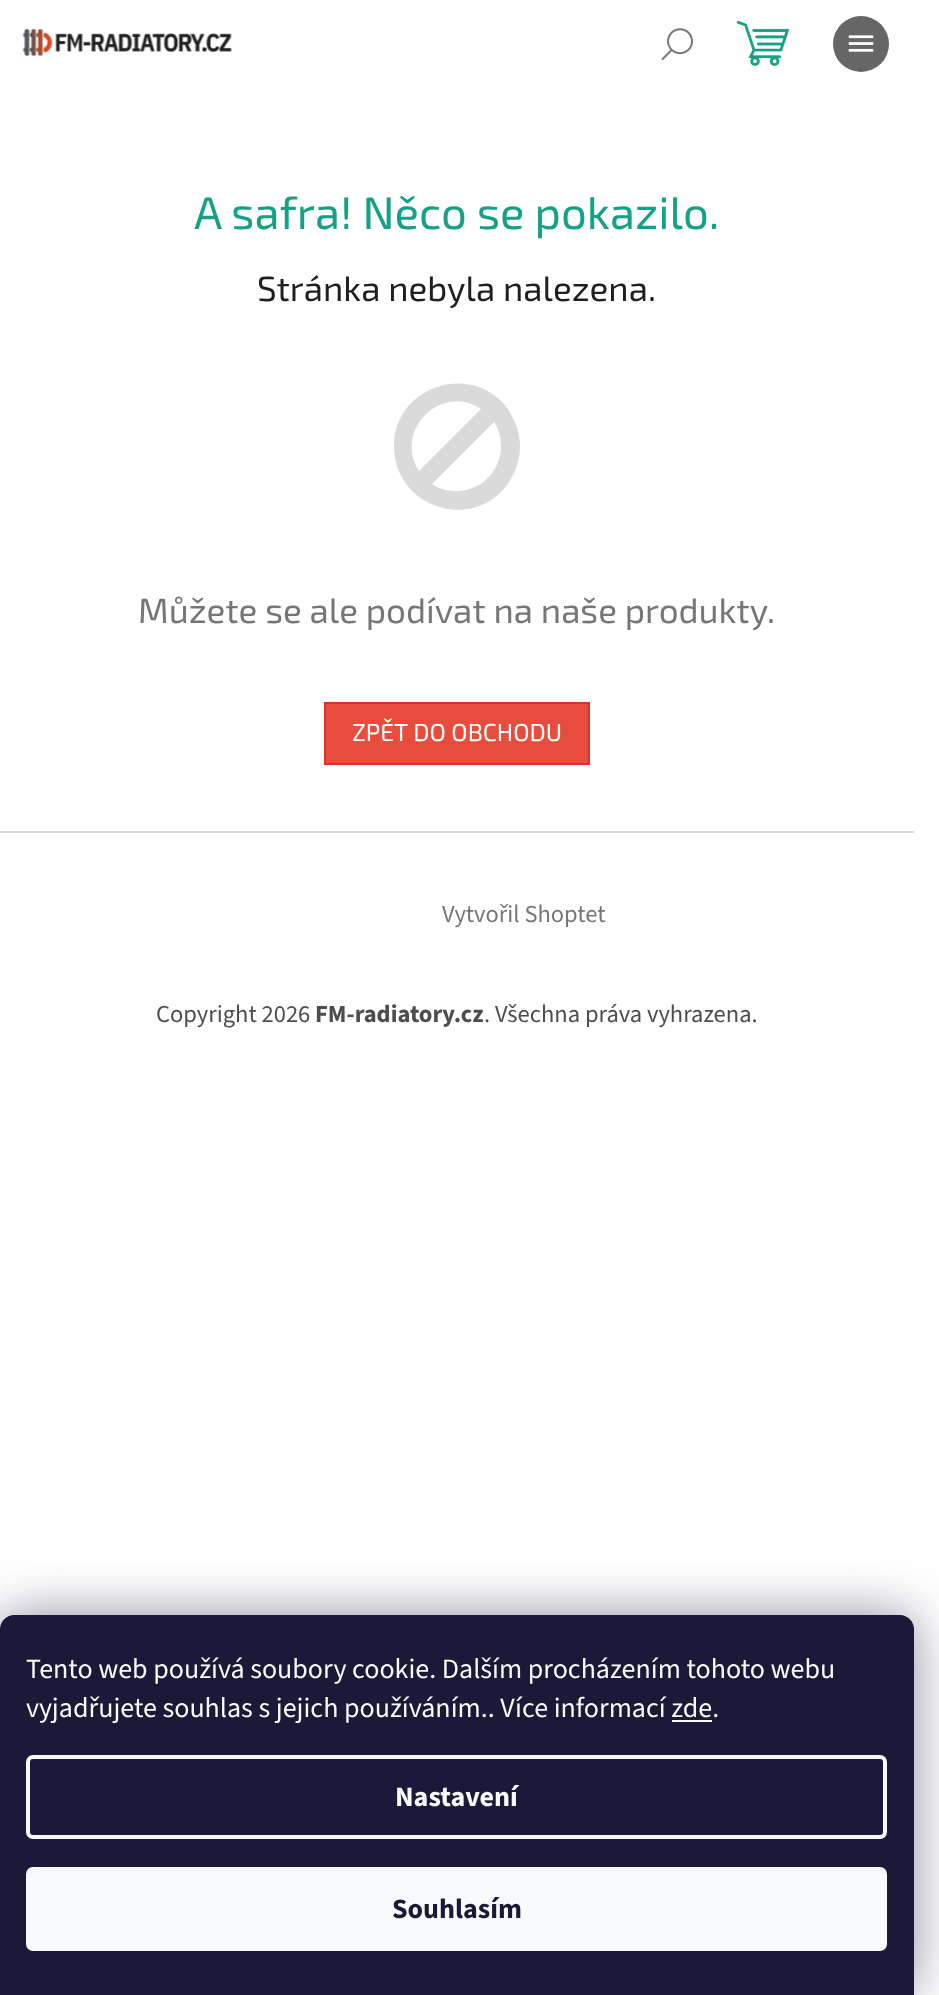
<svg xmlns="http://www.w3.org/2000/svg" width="939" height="1995">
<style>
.a{font:45.5px 'Exo 2';fill:#16a085}
.b{font:35px 'Exo 2';fill:#1f1f1f}
.c{font:35px 'Exo 2';fill:#767676}
.d{font:24.5px 'Exo 2';fill:#fff}
.e{font:24.5px 'Source Sans 3';fill:#767676}
.f{font:24.5px 'Source Sans 3';fill:#4d4d4d}
.g{font:bold 24.5px 'Source Sans 3';fill:#4d4d4d}
.h{font:28px 'Source Sans 3';fill:#f8fafb}
.i{font:bold 28px 'Source Sans 3';fill:#f8fafb}
.j{font:bold 28px 'Source Sans 3';fill:#1a1937}
</style>
<rect width="100%" height="100%" fill="#fff"/>
<image href="1.png" x="661" y="28" width="32" height="33"/>
<circle fill="#666" cx="861" cy="44" r="28"/>
<image href="2.png" x="848" y="35" width="26" height="17"/>
<image href="3.png" x="22" y="28" width="210" height="28"/>
<image href="4.png" x="736" y="20" width="54" height="46"/>
<path fill="#dadada" d="M501 446c0-8-2-17-7-24l-62 62c30 19 69-2 69-38zm-82 25l62-62c-40-27-88 22-62 62zm101-25c0 13-4 25-11 36c-35 52-115 26-115-36c0-61 81-86 115-35c7 11 11 23 11 35z"/>
<path fill="#e74c3c" stroke="#d93621" stroke-width="2" d="M325 703h264v61H325z"/>
<path fill="#dadada" d="M0 831h914v2H0z"/>
<rect fill="#1b193980" filter="blur(26px)" y="1615" width="914" height="380" rx="14"/>
<path fill="#1a1937" d="M14 1615h886c7.5 0 14 6.5 14 14v366h-914v-366c0-7.5 6.5-14 14-14z"/>
<path fill="#f8fafb" d="M672 1720h40v2H672z"/>
<rect fill="none" stroke="#f8fafb" stroke-width="4" x="28" y="1757" width="857" height="80" rx="5"/>
<rect fill="#f8fafb" x="26" y="1867" width="861" height="84" rx="7"/>
<text class="a" x="194" y="229">A safra! Něco se pokazilo.</text>
<text class="b" x="257" y="301">Stránka nebyla nalezena.</text>
<text class="c" x="138" y="623">Můžete se ale podívat na naše produkty.</text>
<text class="d" x="352" y="741">ZPĚT DO OBCHODU</text>
<text class="e" x="442" y="922">Vytvořil Shoptet</text>
<text class="f" x="156" y="1022">Copyright 2026</text>
<text class="g" x="315" y="1022">FM-radiatory.cz</text>
<text class="f" x="484" y="1022">. Všechna práva vyhrazena.</text>
<text class="h" x="26" y="1678">Tento web používá soubory cookie. Dalším procházením tohoto webu</text>
<text class="h" x="26" y="1717">vyjadřujete souhlas s jejich používáním.. Více informací zde.</text>
<text class="i" x="395" y="1806">Nastavení</text>
<text class="j" x="392" y="1918">Souhlasím</text>
</svg>
